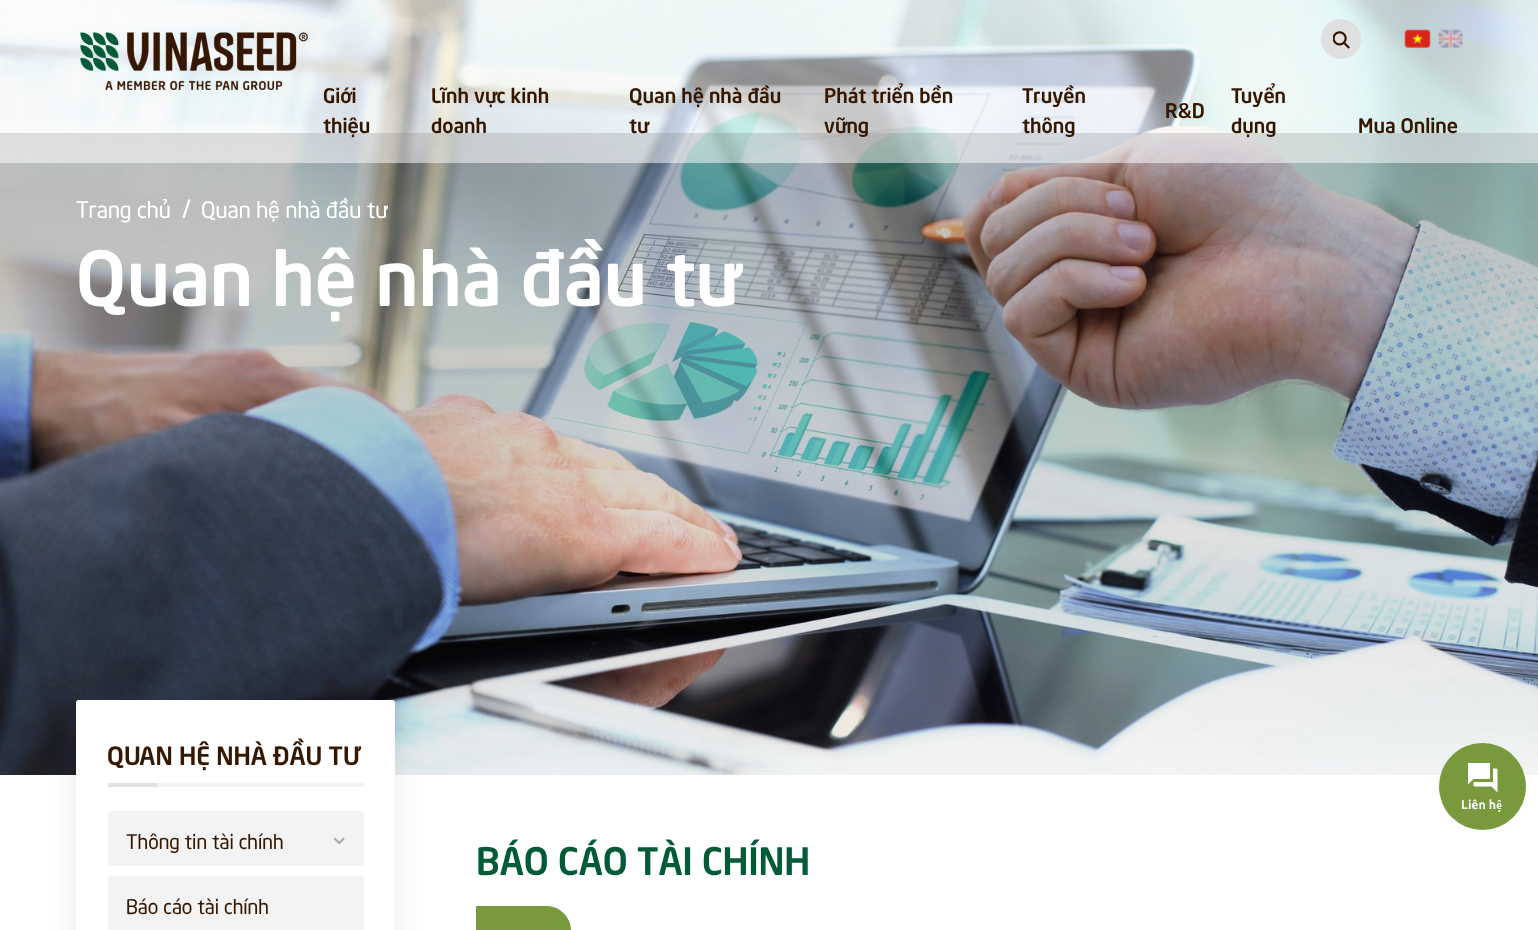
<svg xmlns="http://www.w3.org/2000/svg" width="1538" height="930">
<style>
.a{font:bold 20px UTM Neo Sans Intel;fill:#361800}
.b{font:22.5px UTM Neo Sans Intel;fill:#fff}
.c{font:25px UTM Neo Sans Intel;fill:#fff}
.d{font:bold 75px UTM Neo Sans Intel;fill:#fff}
.e{font:bold 25px UTM Neo Sans Intel;fill:#361800}
.f{font:20px UTM Neo Sans Intel;fill:#361800}
.g{font:bold 37.5px UTM Neo Sans Intel;fill:#005b36}
.h{font:bold 12.5px Ubuntu;fill:#fff}
</style>
<rect width="100%" height="100%" fill="#fff"/>
<image href="5.png" x="0" y="0" width="1538" height="775"/>
<path fill="#ffffff82" d="M0 0h1538v163H0z"/>
<image href="1.png" x="80" y="32" width="228" height="58"/>
<circle fill="#e0e0e0" cx="1341" cy="39" r="20"/>
<image href="2.png" x="1333" y="31" width="17" height="18"/>
<path fill="#dadada" d="M1386 29h1v21H1386z"/>
<image href="3.png" x="1404" y="29" width="27" height="19"/>
<image href="4.png" x="1438" y="29" width="25" height="19"/>
<rect fill="#00000014" filter="blur(15.5px)" x="76" y="700" width="319" height="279" rx="2.5"/>
<rect fill="#fff" x="76" y="700" width="319" height="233" rx="2.5"/>
<path fill="#f3f3f3" d="M158 783h206v4H158z"/>
<path fill="#e1e1e1" d="M108 783h50v4H108z"/>
<rect fill="#f3f3f3" x="108" y="811" width="256" height="55" rx="2.5"/>
<image href="6.png" x="333" y="837" width="12" height="8"/>
<rect fill="#f3f3f3" x="108" y="876" width="256" height="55" rx="2.5"/>
<path fill="#789a3d" d="M476 906h70c14 0 25 11 25 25v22h-70c-14 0-25-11-25-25z"/>
<circle fill="#789a3d" cx="1482.5" cy="786.5" r="43.5"/>
<image href="7.png" x="1468" y="763" width="30" height="30"/>
<text class="a" x="323" y="103">Giới</text>
<text class="a" x="323" y="133">thiệu</text>
<text class="a" x="431" y="103">Lĩnh vực kinh</text>
<text class="a" x="431" y="133">doanh</text>
<text class="a" x="629" y="103">Quan hệ nhà đầu</text>
<text class="a" x="629" y="133">tư</text>
<text class="a" x="824" y="103">Phát triển bền</text>
<text class="a" x="824" y="133">vững</text>
<text class="a" x="1022" y="103">Truyền</text>
<text class="a" x="1022" y="133">thông</text>
<text class="a" x="1165" y="118">R&amp;D</text>
<text class="a" x="1231" y="103">Tuyển</text>
<text class="a" x="1231" y="133">dụng</text>
<text class="a" x="1358" y="133">Mua Online</text>
<text class="b" x="76" y="218">Trang chủ</text>
<text class="c" x="182" y="218">/</text>
<text class="b" x="201" y="218">Quan hệ nhà đầu tư</text>
<text class="d" x="76" y="306">Quan hệ nhà đầu tư</text>
<text class="e" x="107" y="765">QUAN HỆ NHÀ ĐẦU TƯ</text>
<text class="f" x="126" y="849">Thông tin tài chính</text>
<text class="f" x="126" y="914">Báo cáo tài chính</text>
<text class="g" x="476" y="875">BÁO CÁO TÀI CHÍNH</text>
<text class="h" x="1461" y="809">Liên hệ</text>
</svg>
